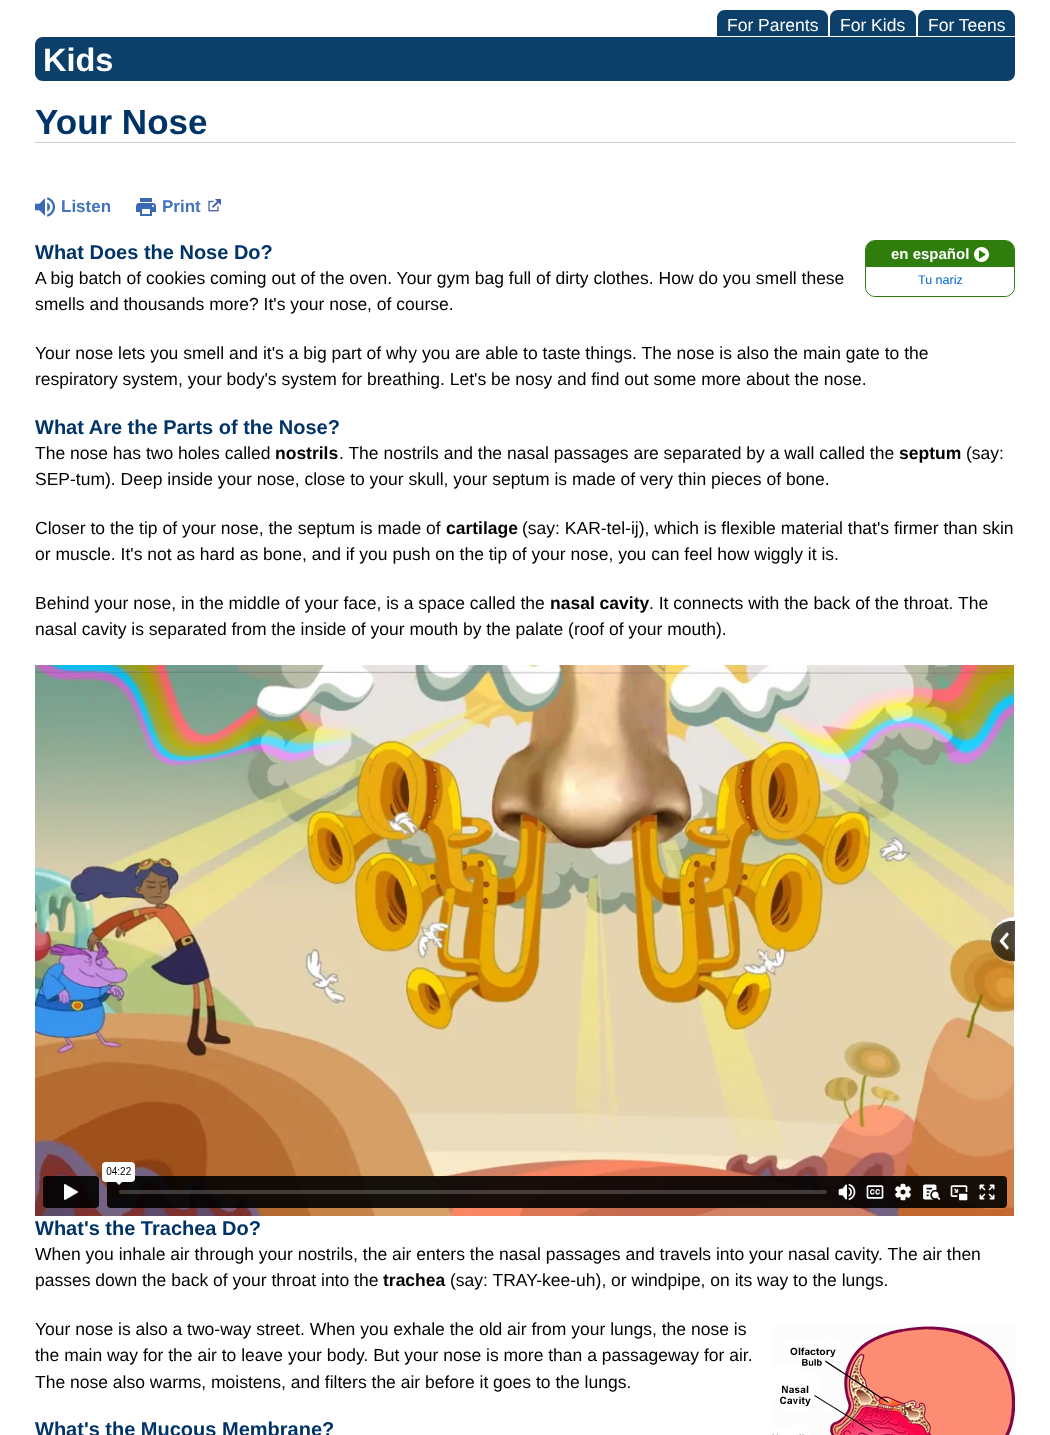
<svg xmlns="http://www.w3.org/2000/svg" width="1050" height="1435">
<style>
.a{font:17.5px Liberation Sans;fill:#fff}
.b{font:bold 32.5px Liberation Sans;fill:#fff}
.c{font:bold 35px Liberation Sans;fill:#036}
.d{font:bold 17px Liberation Sans;fill:#4275bd}
.e{font:bold 20px Liberation Sans;fill:#036}
.f{font:17.5px Liberation Sans;fill:#000}
.g{font:bold 17.5px Liberation Sans;fill:#000}
.h{font:bold 15px Liberation Sans;fill:#fff}
.i{font:12.5px Liberation Sans;fill:#06c}
</style>
<rect width="100%" height="100%" fill="#fff"/>
<path fill="#0d3f6b" d="M725 10h95c4.5 0 8 3.5 8 8v18h-111v-18c0-4.5 3.5-8 8-8z"/>
<path fill="#0d3f6b" d="M838 10h70c4.5 0 8 3.5 8 8v18h-86v-18c0-4.5 3.5-8 8-8z"/>
<path fill="#0d3f6b" d="M926 10h81c4.5 0 8 3.5 8 8v18h-97v-18c0-4.5 3.5-8 8-8z"/>
<path fill="#0d3f6b" d="M43 37h972v36c0 4.5-3.5 8-8 8h-964c-4.5 0-8-3.5-8-8v-28c0-4.5 3.5-8 8-8z"/>
<path fill="#ccc" d="M35 142h980v1H35z"/>
<image href="1.png" x="35" y="197" width="20" height="20"/>
<image href="2.png" x="136" y="198" width="20" height="18"/>
<image href="3.png" x="208" y="199" width="13" height="13"/>
<rect fill="none" stroke="#2e7d0d" x="865.5" y="240.5" width="149" height="56" rx="9.5"/>
<path fill="#2e7d0d" d="M874 241h132c4.5 0 8 3.5 8 8v18h-148v-18c0-4.5 3.5-8 8-8z"/>
<image href="4.png" x="974" y="247" width="15" height="15"/>
<path fill="#fff" d="M866 267h148v19c0 5.5-4.5 10-10 10h-128c-5.5 0-10-4.5-10-10z"/>
<image href="5.png" x="35" y="665" width="979" height="551"/>
<path fill="#000000ad" d="M1011 921h4v40h-4c-11 0-20-9-20-20c0-11 9-20 20-20z"/>
<image href="6.png" x="999" y="932" width="10" height="18"/>
<image href="7.png" x="772" y="1326" width="243" height="109"/>
<text class="a" x="727" y="31">For Parents</text>
<text class="a" x="840" y="31">For Kids</text>
<text class="a" x="928" y="31">For Teens</text>
<text class="b" x="43" y="71">Kids</text>
<text class="c" x="35" y="134">Your Nose</text>
<text class="d" x="61" y="212">Listen</text>
<text class="d" x="162" y="212">Print</text>
<text class="e" x="35" y="259">What Does the Nose Do?</text>
<text class="f" x="35" y="284">A big batch of cookies coming out of the oven. Your gym bag full of dirty clothes. How do you smell these</text>
<text class="f" x="35" y="310">smells and thousands more? It's your nose, of course.</text>
<text class="f" x="35" y="359">Your nose lets you smell and it's a big part of why you are able to taste things. The nose is also the main gate to the</text>
<text class="f" x="35" y="385">respiratory system, your body's system for breathing. Let's be nosy and find out some more about the nose.</text>
<text class="e" x="35" y="434">What Are the Parts of the Nose?</text>
<text class="f" x="35" y="459">The nose has two holes called</text>
<text class="g" x="275" y="459">nostrils</text>
<text class="f" x="339" y="459">. The nostrils and the nasal passages are separated by a wall called the</text>
<text class="g" x="899" y="459">septum</text>
<text class="f" x="966" y="459">(say:</text>
<text class="f" x="35" y="485">SEP-tum). Deep inside your nose, close to your skull, your septum is made of very thin pieces of bone.</text>
<text class="f" x="35" y="534">Closer to the tip of your nose, the septum is made of</text>
<text class="g" x="446" y="534">cartilage</text>
<text class="f" x="522" y="534">(say: KAR-tel-ij), which is flexible material that's firmer than skin</text>
<text class="f" x="35" y="560">or muscle. It's not as hard as bone, and if you push on the tip of your nose, you can feel how wiggly it is.</text>
<text class="f" x="35" y="609">Behind your nose, in the middle of your face, is a space called the</text>
<text class="g" x="550" y="609">nasal cavity</text>
<text class="f" x="649" y="609">. It connects with the back of the throat. The</text>
<text class="f" x="35" y="635">nasal cavity is separated from the inside of your mouth by the palate (roof of your mouth).</text>
<text class="h" x="891" y="259">en español</text>
<text class="i" x="918" y="284">Tu nariz</text>
<text class="e" x="35" y="1235">What's the Trachea Do?</text>
<text class="f" x="35" y="1260">When you inhale air through your nostrils, the air enters the nasal passages and travels into your nasal cavity. The air then</text>
<text class="f" x="35" y="1286">passes down the back of your throat into the</text>
<text class="g" x="383" y="1286">trachea</text>
<text class="f" x="450" y="1286">(say: TRAY-kee-uh), or windpipe, on its way to the lungs.</text>
<text class="f" x="35" y="1335">Your nose is also a two-way street. When you exhale the old air from your lungs, the nose is</text>
<text class="f" x="35" y="1361">the main way for the air to leave your body. But your nose is more than a passageway for air.</text>
<text class="f" x="35" y="1388">The nose also warms, moistens, and filters the air before it goes to the lungs.</text>
<text class="e" x="35" y="1436">What's the Mucous Membrane?</text>
</svg>
